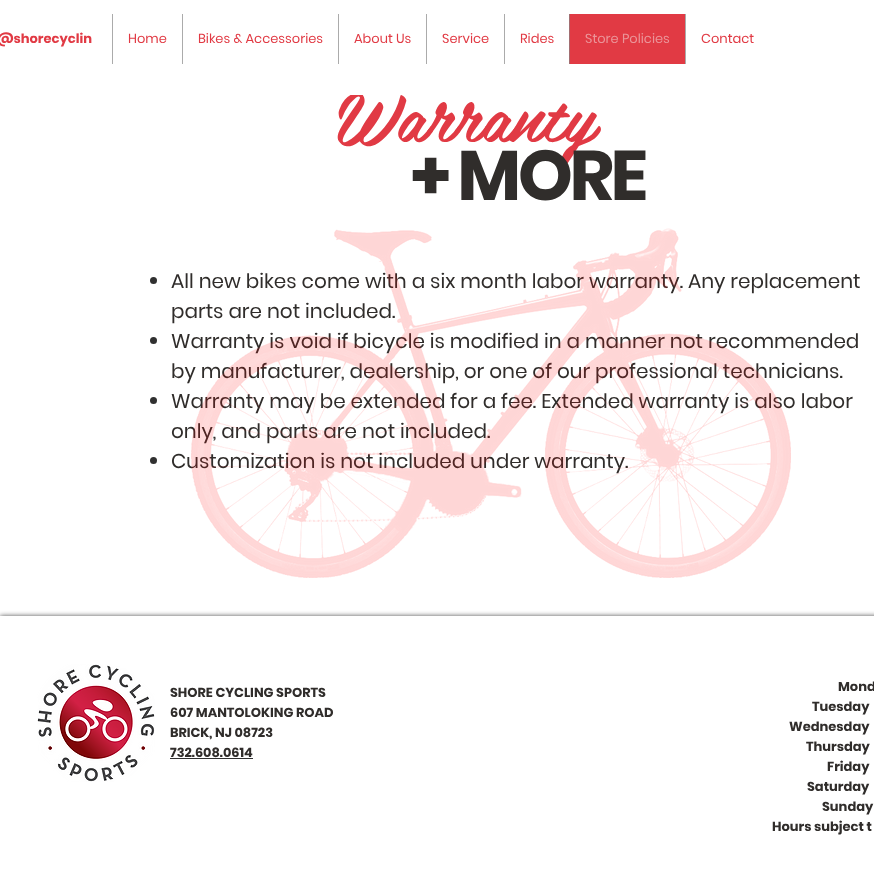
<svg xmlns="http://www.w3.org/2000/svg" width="874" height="881">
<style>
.a{font:bold 13px Poppins;fill:#e13a44}
.b{font:13px Poppins;fill:#e13a44}
.c{font:13px Poppins;fill:#eb9499}
.d{font:70px 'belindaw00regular';fill:#e13a44}
.e{font:bold 70px Poppins;letter-spacing:-3.5px;fill:#302d2b}
.f{font:20px Poppins;fill:#302d2b}
.g{font:bold 13px Poppins;fill:#302d2b}
</style>
<rect width="100%" height="100%" fill="#fff"/>
<path fill="#ababab" d="M112 14h1v50H112z"/>
<path fill="#ababab" d="M182 14h1v50H182z"/>
<path fill="#ababab" d="M338 14h1v50H338z"/>
<path fill="#ababab" d="M426 14h1v50H426z"/>
<path fill="#ababab" d="M504 14h1v50H504z"/>
<path fill="#e13a44" d="M570 14h115v50H570z"/>
<path fill="#a26e71" d="M569 14h1v50H569z"/>
<path fill="#ababab" d="M685 14h1v50H685z"/>
<circle fill="#303030" cx="153.5" cy="280.5" r="3.5"/>
<circle fill="#303030" cx="153.5" cy="340.5" r="3.5"/>
<circle fill="#303030" cx="153.5" cy="400.5" r="3.5"/>
<circle fill="#303030" cx="153.5" cy="460.5" r="3.5"/>
<path fill="#000000b3" filter="blur(2.5px)" d="M0 616h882v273H0z"/>
<path fill="#fff" d="M0 616h874v265H0z"/>
<image href="2.png" x="37" y="664" width="118" height="118"/>
<path fill="#303030" d="M170 758h83v1H170z"/>
<text class="a" x="-3" y="43">@shorecyclin</text>
<text class="b" x="128" y="43">Home</text>
<text class="b" x="198" y="43">Bikes &amp; Accessories</text>
<text class="b" x="354" y="43">About Us</text>
<text class="b" x="442" y="43">Service</text>
<text class="b" x="520" y="43">Rides</text>
<text class="c" x="585" y="43">Store Policies</text>
<text class="b" x="701" y="43">Contact</text>
<text class="d" x="336" y="142">Warranty</text>
<path fill="#fff" d="M350 92h13v3H350z"/>
<text class="e" x="411" y="200">+ MORE</text>
<text class="f" x="171" y="288">All new bikes come with a six month labor warranty. Any replacement</text>
<text class="f" x="171" y="318">parts are not included.</text>
<text class="f" x="171" y="348">Warranty is void if bicycle is modified in a manner not recommended</text>
<text class="f" x="171" y="378">by manufacturer, dealership, or one of our professional technicians.</text>
<text class="f" x="171" y="408">Warranty may be extended for a fee. Extended warranty is also labor</text>
<text class="f" x="171" y="438">only, and parts are not included.</text>
<text class="f" x="171" y="468">Customization is not included under warranty.</text>
<image href="1.png" x="191" y="228" width="600" height="350"/>
<text class="g" x="170" y="697">SHORE CYCLING SPORTS</text>
<text class="g" x="170" y="717">607 MANTOLOKING ROAD</text>
<text class="g" x="170" y="737">BRICK, NJ 08723</text>
<text class="g" x="170" y="757">732.608.0614</text>
<text class="g" x="838" y="691">Mond</text>
<text class="g" x="812" y="711">Tuesday</text>
<text class="g" x="789" y="731">Wednesday</text>
<text class="g" x="806" y="751">Thursday</text>
<text class="g" x="827" y="771">Friday</text>
<text class="g" x="807" y="791">Saturday</text>
<text class="g" x="822" y="811">Sunday</text>
<text class="g" x="772" y="831">Hours subject t</text>
</svg>
